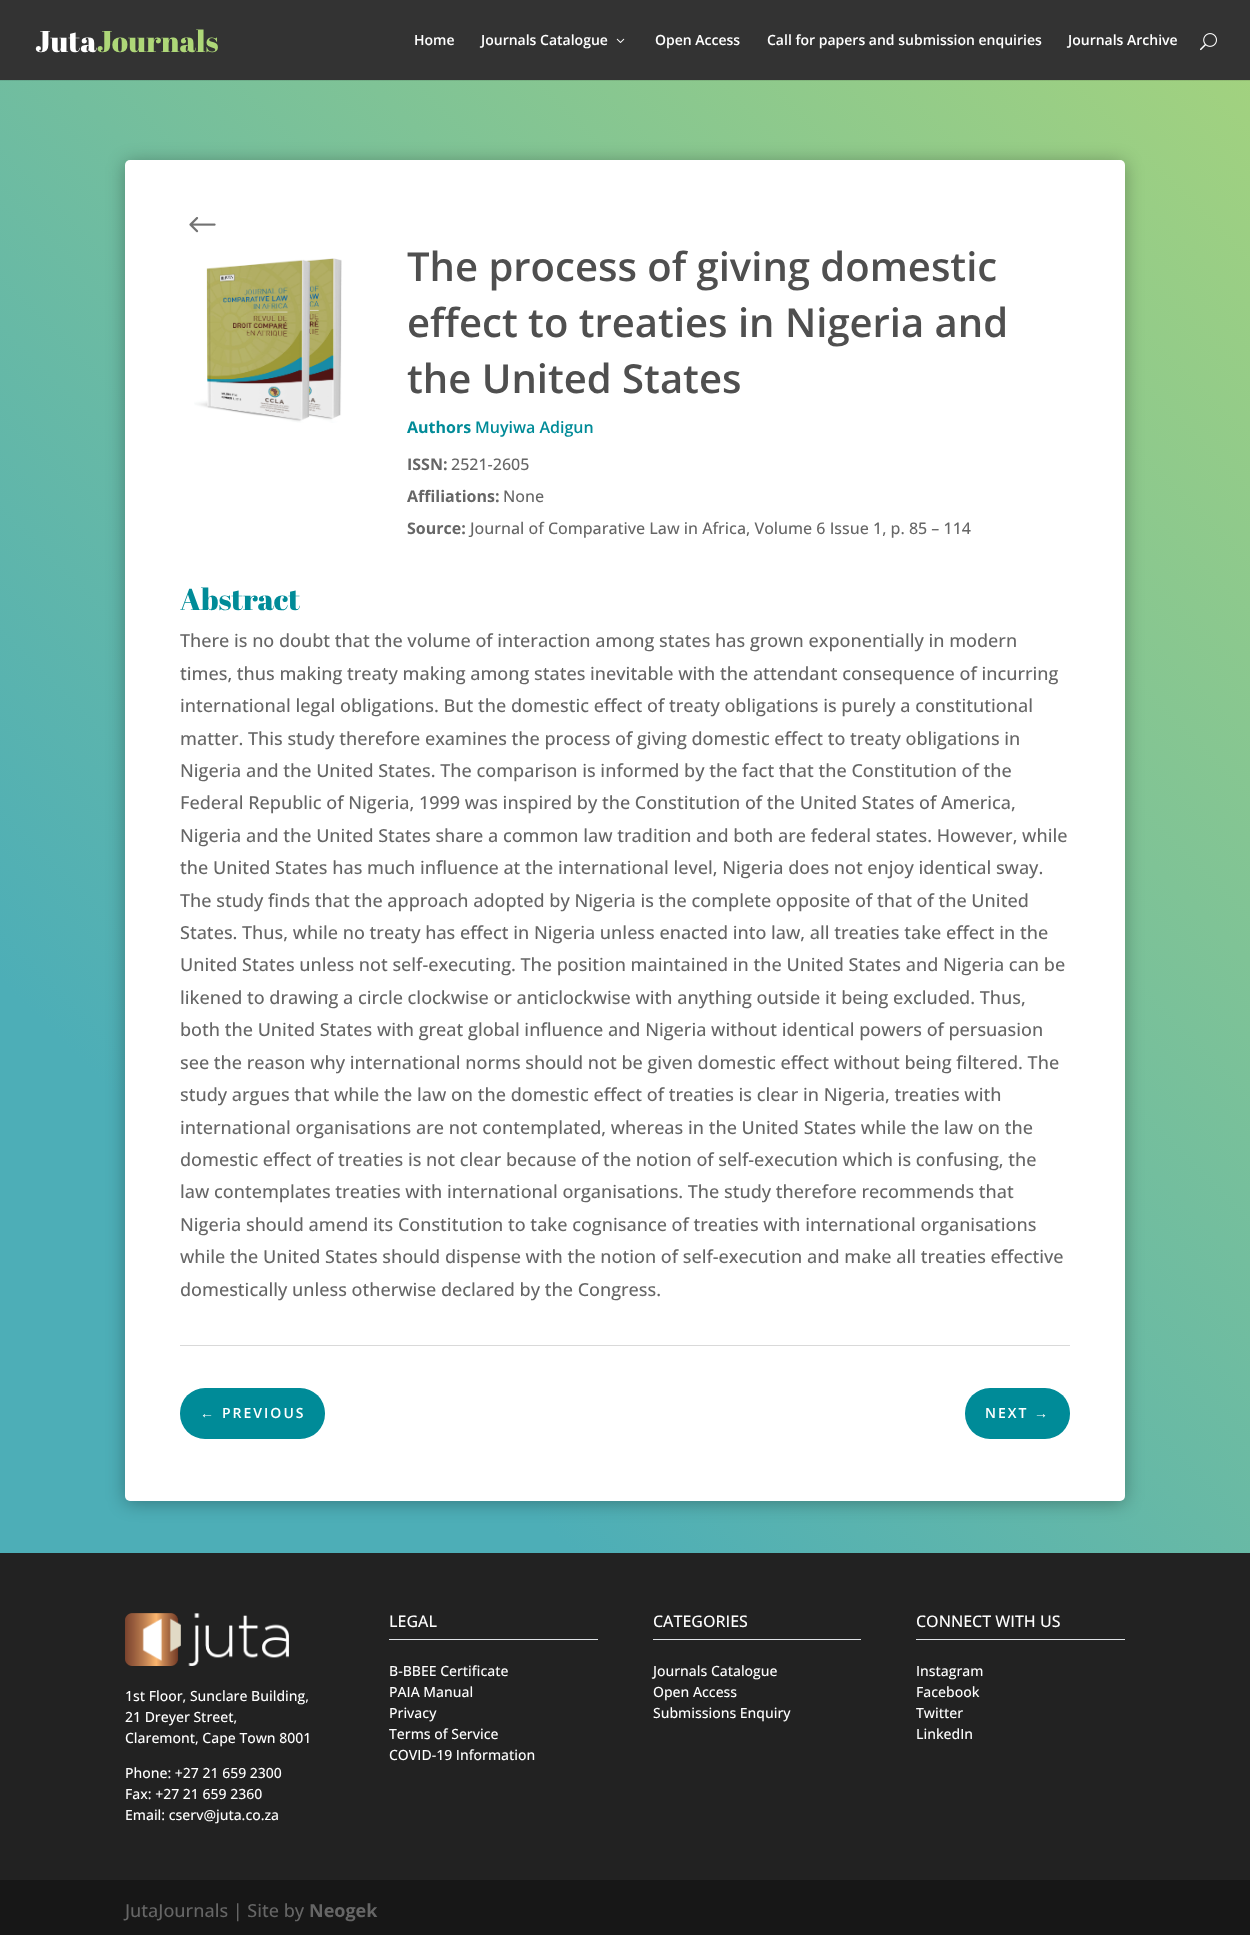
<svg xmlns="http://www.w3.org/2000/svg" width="1250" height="1935">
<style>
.a{font:600 14px Open Sans;fill:#fff}
.b{font:600 40px Open Sans;fill:#4f4f4f}
.c{font:bold 16px Open Sans;fill:#008b98}
.d{font:600 16px Open Sans;fill:#008b98}
.e{font:bold 16px Open Sans;fill:#666}
.f{font:500 16px Open Sans;fill:#666}
.g{font:30px Abril Fatface;fill:#008b98}
.h{font:500 18px Open Sans;fill:#666}
.i{font:bold 14px Liberation Sans;letter-spacing:2px;fill:#fff}
.j{font:600 14px Open Sans;letter-spacing:2px;fill:#fff}
.k{font:500 16px Open Sans;fill:#fff}
.l{font:500 14px Open Sans;fill:#fff}
.m{font:bold 18px Open Sans;fill:#666}
</style>
<defs>
<linearGradient id="g1" gradientUnits="userSpaceOnUse" x1="-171" y1="1764" x2="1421" y2="171"><stop offset="0.3" stop-color="#4daeb7"/><stop offset="1" stop-color="#a5d37d"/></linearGradient>
<linearGradient id="g2" gradientUnits="userSpaceOnUse" x1="-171" y1="1764" x2="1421" y2="171"><stop offset="0.3" stop-color="#459da5"/><stop offset="1" stop-color="#95be71"/></linearGradient>
</defs>
<rect width="100%" height="100%" fill="#fff"/>
<path fill="url(#g1)" d="M0 81h1250v1472H0z"/>
<path fill="url(#g2)" d="M0 80h1250v1H0z"/>
<path fill="#333" d="M0 0h1250v80H0z"/>
<image href="1.png" x="35" y="29" width="183" height="24"/>
<image href="2.png" x="616" y="38" width="9" height="5"/>
<image href="3.png" x="1200" y="33" width="17" height="18"/>
<rect fill="#0000004d" filter="blur(9px)" x="125" y="162" width="1000" height="1341" rx="5"/>
<rect fill="#fff" x="125" y="160" width="1000" height="1341" rx="5"/>
<image href="4.png" x="189" y="217" width="27" height="16"/>
<image href="5.png" x="194" y="258" width="148" height="165"/>
<path fill="#d9d9d9" d="M180 1345h890v1H180z"/>
<rect fill="#008b98" x="180" y="1388" width="145" height="51" rx="25"/>
<rect fill="#008b98" x="965" y="1388" width="105" height="51" rx="25"/>
<path fill="#222" d="M0 1553h1250v327H0z"/>
<path fill="#dee2e6" d="M389 1639h209v1H389z"/>
<path fill="#dee2e6" d="M653 1639h208v1H653z"/>
<path fill="#dee2e6" d="M916 1639h209v1H916z"/>
<image href="6.png" x="125" y="1613" width="164" height="53"/>
<path fill="#171717" d="M0 1880h1250v55H0z"/>
<text class="a" x="414" y="45">Home</text>
<text class="a" x="481" y="45">Journals Catalogue</text>
<text class="a" x="655" y="45">Open Access</text>
<text class="a" x="767" y="45">Call for papers and submission enquiries</text>
<text class="a" x="1068" y="45">Journals Archive</text>
<text class="b" x="407" y="281">The process of giving domestic</text>
<text class="b" x="407" y="337">effect to treaties in Nigeria and</text>
<text class="b" x="407" y="393">the United States</text>
<text class="c" x="407" y="433">Authors</text>
<text class="d" x="475" y="433">Muyiwa Adigun</text>
<text class="e" x="407" y="470">ISSN:</text>
<text class="f" x="451" y="470">2521-2605</text>
<text class="e" x="407" y="502">Affiliations:</text>
<text class="f" x="503" y="502">None</text>
<text class="e" x="407" y="534">Source:</text>
<text class="f" x="470" y="534">Journal of Comparative Law in Africa, Volume 6 Issue 1, p. 85 – 114</text>
<text class="g" x="180" y="610">Abstract</text>
<text class="h" x="180" y="647">There is no doubt that the volume of interaction among states has grown exponentially in modern</text>
<text class="h" x="180" y="680">times, thus making treaty making among states inevitable with the attendant consequence of incurring</text>
<text class="h" x="180" y="712">international legal obligations. But the domestic effect of treaty obligations is purely a constitutional</text>
<text class="h" x="180" y="745">matter. This study therefore examines the process of giving domestic effect to treaty obligations in</text>
<text class="h" x="180" y="777">Nigeria and the United States. The comparison is informed by the fact that the Constitution of the</text>
<text class="h" x="180" y="809">Federal Republic of Nigeria, 1999 was inspired by the Constitution of the United States of America,</text>
<text class="h" x="180" y="842">Nigeria and the United States share a common law tradition and both are federal states. However, while</text>
<text class="h" x="180" y="874">the United States has much influence at the international level, Nigeria does not enjoy identical sway.</text>
<text class="h" x="180" y="907">The study finds that the approach adopted by Nigeria is the complete opposite of that of the United</text>
<text class="h" x="180" y="939">States. Thus, while no treaty has effect in Nigeria unless enacted into law, all treaties take effect in the</text>
<text class="h" x="180" y="971">United States unless not self-executing. The position maintained in the United States and Nigeria can be</text>
<text class="h" x="180" y="1004">likened to drawing a circle clockwise or anticlockwise with anything outside it being excluded. Thus,</text>
<text class="h" x="180" y="1036">both the United States with great global influence and Nigeria without identical powers of persuasion</text>
<text class="h" x="180" y="1069">see the reason why international norms should not be given domestic effect without being filtered. The</text>
<text class="h" x="180" y="1101">study argues that while the law on the domestic effect of treaties is clear in Nigeria, treaties with</text>
<text class="h" x="180" y="1134">international organisations are not contemplated, whereas in the United States while the law on the</text>
<text class="h" x="180" y="1166">domestic effect of treaties is not clear because of the notion of self-execution which is confusing, the</text>
<text class="h" x="180" y="1198">law contemplates treaties with international organisations. The study therefore recommends that</text>
<text class="h" x="180" y="1231">Nigeria should amend its Constitution to take cognisance of treaties with international organisations</text>
<text class="h" x="180" y="1263">while the United States should dispense with the notion of self-execution and make all treaties effective</text>
<text class="h" x="180" y="1296">domestically unless otherwise declared by the Congress.</text>
<text class="i" x="200" y="1418">←</text>
<text class="j" x="222" y="1418">PREVIOUS</text>
<text class="j" x="985" y="1418">NEXT</text>
<text class="i" x="1034" y="1418">→</text>
<text class="k" x="389" y="1627">LEGAL</text>
<text class="l" x="389" y="1676">B-BBEE Certificate</text>
<text class="l" x="389" y="1697">PAIA Manual</text>
<text class="l" x="389" y="1718">Privacy</text>
<text class="l" x="389" y="1739">Terms of Service</text>
<text class="l" x="389" y="1760">COVID-19 Information</text>
<text class="k" x="653" y="1627">CATEGORIES</text>
<text class="l" x="653" y="1676">Journals Catalogue</text>
<text class="l" x="653" y="1697">Open Access</text>
<text class="l" x="653" y="1718">Submissions Enquiry</text>
<text class="k" x="916" y="1627">CONNECT WITH US</text>
<text class="l" x="916" y="1676">Instagram</text>
<text class="l" x="916" y="1697">Facebook</text>
<text class="l" x="916" y="1718">Twitter</text>
<text class="l" x="916" y="1739">LinkedIn</text>
<text class="l" x="125" y="1701">1st Floor, Sunclare Building,</text>
<text class="l" x="125" y="1722">21 Dreyer Street,</text>
<text class="l" x="125" y="1743">Claremont, Cape Town 8001</text>
<text class="l" x="125" y="1778">Phone: +27 21 659 2300</text>
<text class="l" x="125" y="1799">Fax: +27 21 659 2360</text>
<text class="l" x="125" y="1820">Email: cserv@juta.co.za</text>
<text class="h" x="125" y="1917">JutaJournals | Site by</text>
<text class="m" x="309" y="1917">Neogek</text>
</svg>
